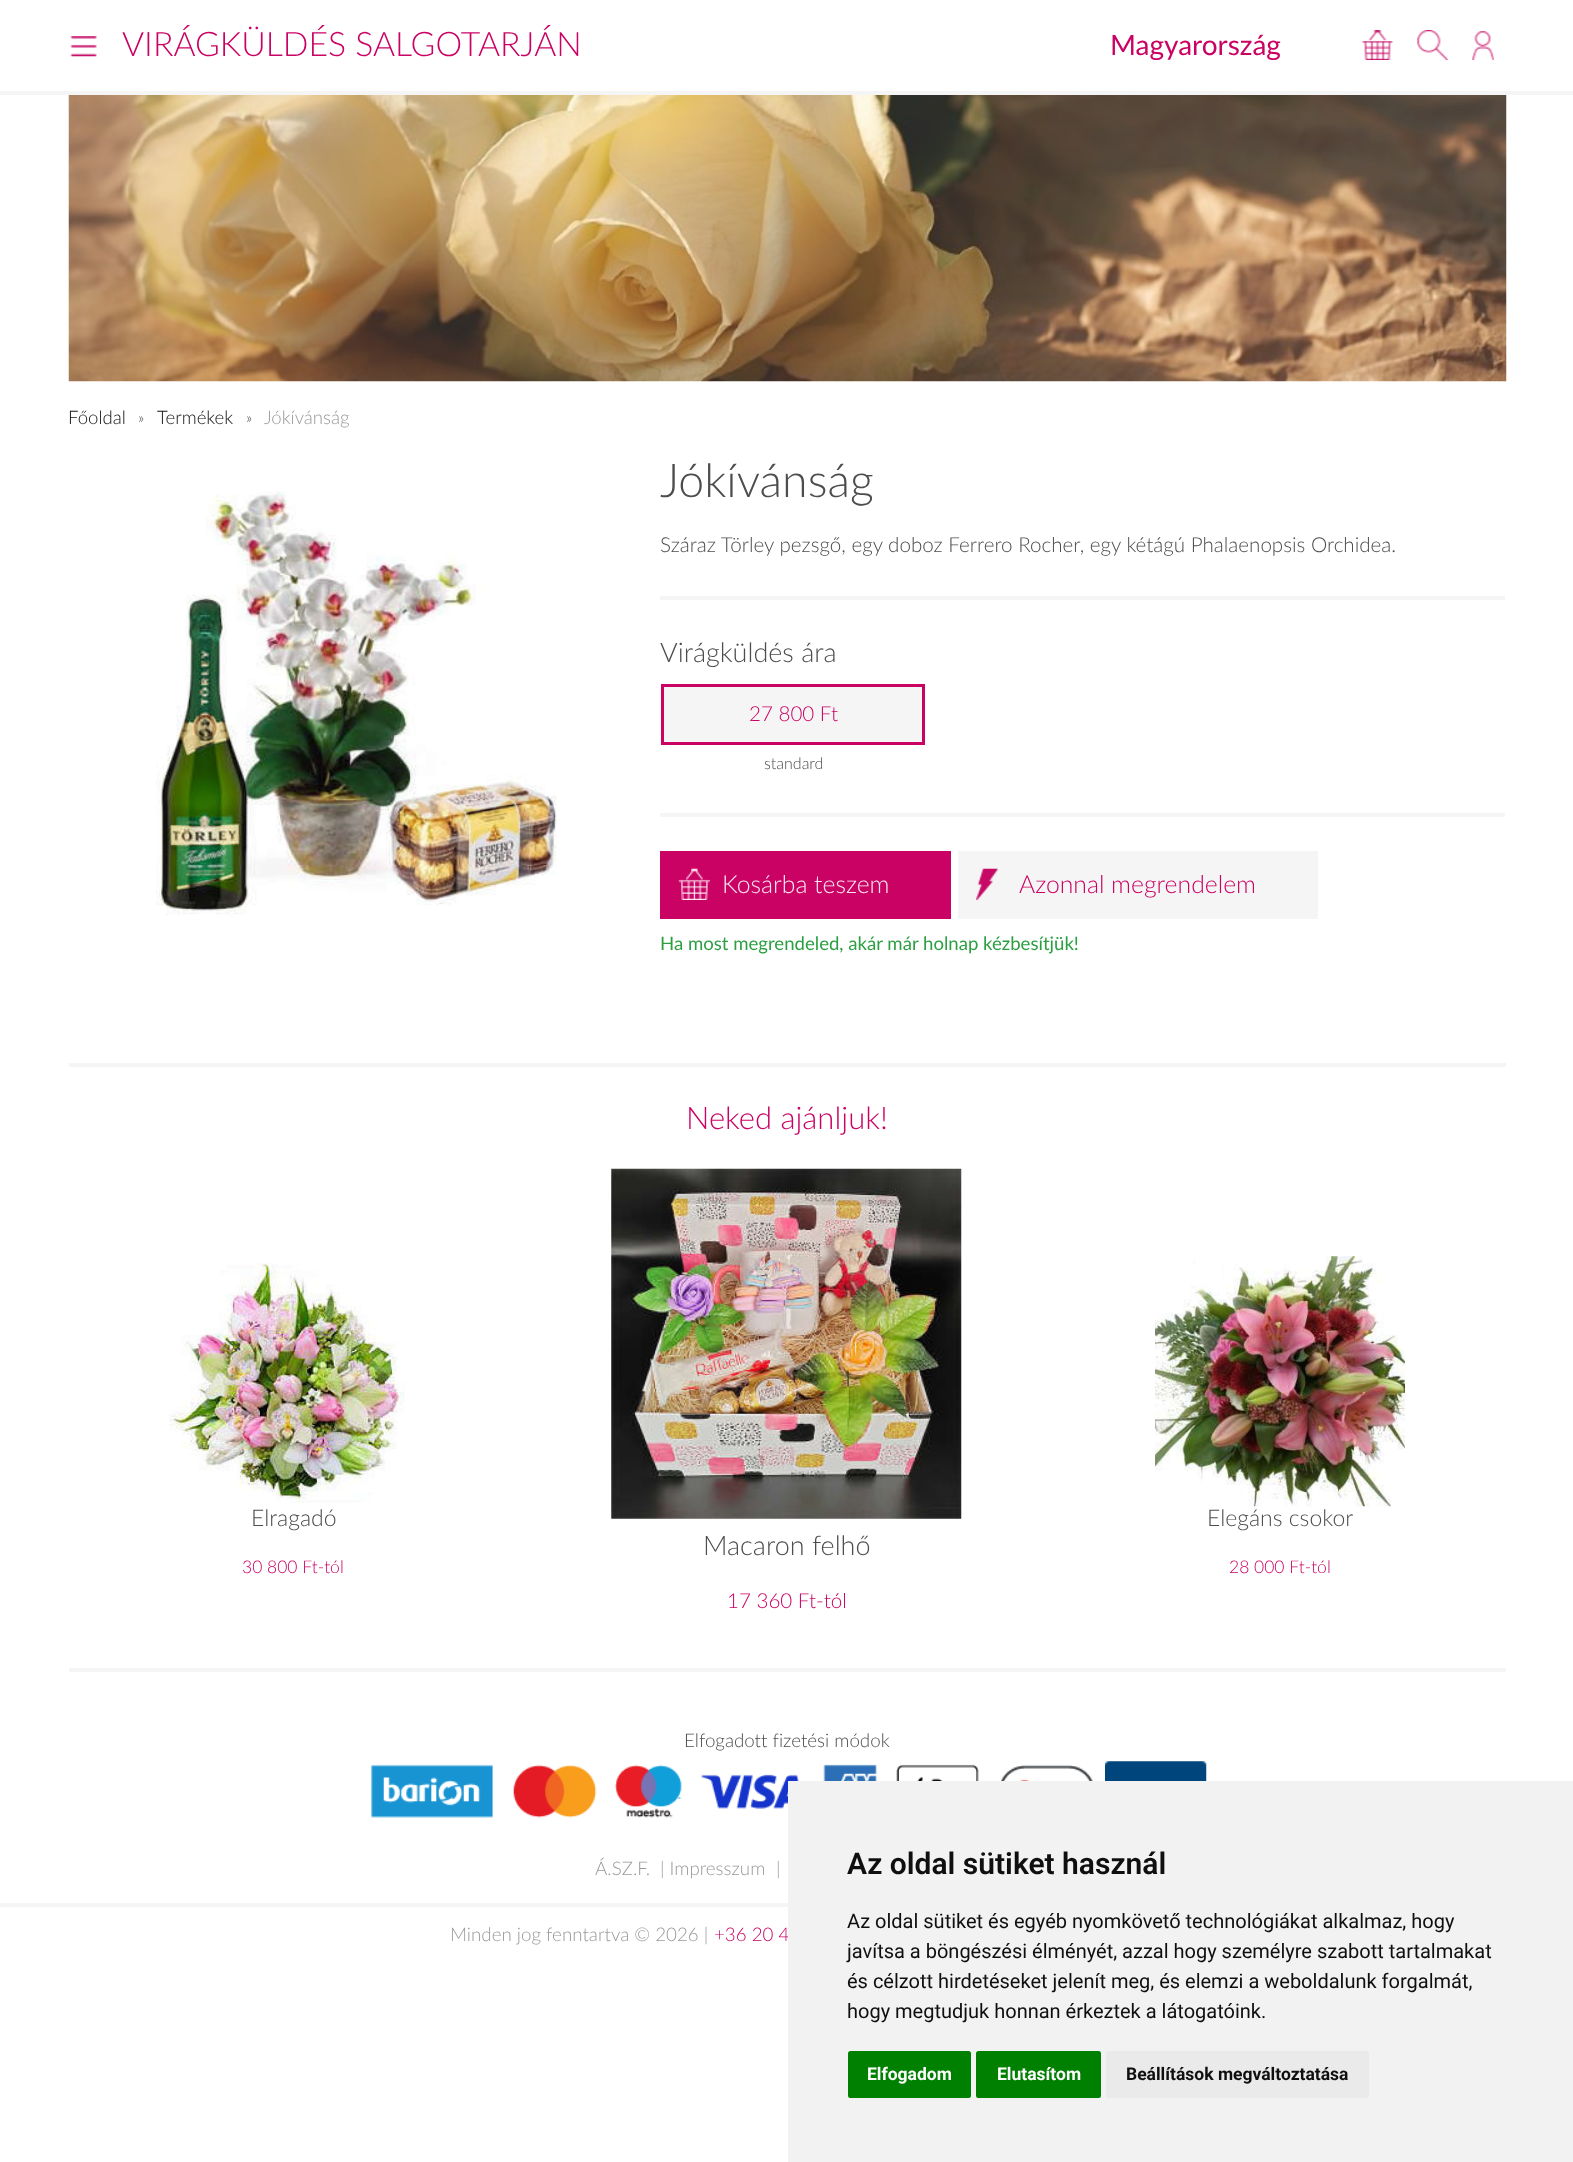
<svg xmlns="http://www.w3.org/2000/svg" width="1573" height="2162">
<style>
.a{font:300 33.75px Lato;fill:#ca0264}
.b{font:28px Lato;fill:#ca0264}
.c{font:300 18.6px Lato;fill:#0f0f0f}
.d{font:300 15px Lato;fill:#4d4d4d}
.e{font:300 18.6px Lato;fill:#999}
.f{font:300 46.5px Lato;fill:#4d4d4d}
.g{font:300 20.6px Lato;fill:#4d4d4d}
.h{font:300 27px Lato;fill:#4d4d4d}
.i{font:300 20.6px Lato;fill:#ca0264}
.j{font:300 16px Lato;fill:#4d4d4d}
.k{font:300 24.75px Lato;fill:#fae6f0}
.l{font:300 24.75px Lato;fill:#ca0264}
.m{font:18.6px Lato;fill:#2c9f42}
.n{font:300 31px Lato;fill:#ca0264}
.o{font:300 23px Lato;fill:#4d4d4d}
.p{font:300 17.5px Lato;fill:#ca0264}
.q{font:300 18.75px Lato;fill:#4d4d4d}
.r{font:300 18.75px Lato;fill:#999}
.s{font:300 18.75px Lato;fill:#ca0264}
.t{font:600 30px Roboto;fill:#0f0f0f}
.u{font:20px Roboto;fill:#0f0f0f}
.v{font:bold 17.5px Roboto;fill:#fff}
.w{font:bold 17.5px Roboto;fill:#0f0f0f}
</style>
<rect width="100%" height="100%" fill="#fff"/>
<path fill="#f5f5f5" d="M0 91h1573v4H0z"/>
<image href="1.png" x="70" y="36" width="27" height="21"/>
<image href="2.png" x="1362" y="30" width="31" height="30"/>
<image href="3.png" x="1417" y="30" width="31" height="30"/>
<image href="4.png" x="1472" y="31" width="22" height="29"/>
<image href="5.png" x="68" y="95" width="1439" height="287"/>
<path fill="#f5f5f5" d="M69 1063h1437v4H69z"/>
<image href="6.png" x="156" y="491" width="401" height="424"/>
<path fill="#f5f5f5" d="M660 596h845v4H660z"/>
<path fill="#f5f5f5" stroke="#ca0264" stroke-width="3" d="M662.5 685.5h261v58H662.5z"/>
<path fill="#f5f5f5" d="M660 813h845v4H660z"/>
<path fill="#ca0264" d="M660 851h291v68H660z"/>
<image href="7.png" x="678" y="868" width="32" height="32"/>
<path fill="#f5f5f5" d="M958 851h360v68H958z"/>
<image href="8.png" x="976" y="868" width="22" height="32"/>
<path fill="#f5f5f5" d="M69 1668h1437v4H69z"/>
<image href="9.png" x="169" y="1263" width="236" height="240"/>
<image href="10.png" x="611" y="1168" width="351" height="351"/>
<image href="11.png" x="1155" y="1256" width="250" height="251"/>
<image href="12.png" x="371" y="1764" width="725" height="54"/>
<image href="13.png" x="1105" y="1761" width="102" height="20"/>
<path fill="#f5f5f5" d="M0 1903h788v4H0z"/>
<text class="a" x="122" y="56">VIRÁGKÜLDÉS SALGOTARJÁN</text>
<text class="b" x="1110" y="55">Magyarország</text>
<text class="c" x="68" y="424">Főoldal</text>
<text class="d" x="138" y="423">»</text>
<text class="c" x="157" y="424">Termékek</text>
<text class="d" x="246" y="423">»</text>
<text class="e" x="264" y="424">Jókívánság</text>
<text class="f" x="660" y="497">Jókívánság</text>
<text class="g" x="660" y="552">Száraz Törley pezsgő, egy doboz Ferrero Rocher, egy kétágú Phalaenopsis Orchidea.</text>
<text class="h" x="660" y="662">Virágküldés ára</text>
<text class="i" x="749" y="721">27 800 Ft</text>
<text class="j" x="764" y="769">standard</text>
<text class="k" x="722" y="893">Kosárba teszem</text>
<text class="l" x="1019" y="893">Azonnal megrendelem</text>
<text class="m" x="660" y="950">Ha most megrendeled, akár már holnap kézbesítjük!</text>
<text class="n" x="686" y="1129">Neked ajánljuk!</text>
<text class="o" x="251" y="1526">Elragadó</text>
<text class="p" x="242" y="1573">30 800 Ft-tól</text>
<text class="h" x="703" y="1555">Macaron felhő</text>
<text class="i" x="727" y="1608">17 360 Ft-tól</text>
<text class="o" x="1207" y="1526">Elegáns csokor</text>
<text class="p" x="1229" y="1573">28 000 Ft-tól</text>
<text class="q" x="684" y="1747">Elfogadott fizetési módok</text>
<text class="r" x="595" y="1875">Á.SZ.F.</text>
<text class="r" x="660" y="1875">| Impresszum</text>
<text class="r" x="776" y="1875">|</text>
<text class="r" x="450" y="1941">Minden jog fenntartva © 2026 |</text>
<text class="s" x="714" y="1941">+36 20 4</text>
<path fill="#f2f2f2" d="M788 1781h785v381H788z"/>
<text class="t" x="847" y="1874">Az oldal sütiket használ</text>
<text class="u" x="847" y="1928">Az oldal sütiket és egyéb nyomkövető technológiákat alkalmaz, hogy</text>
<text class="u" x="847" y="1958">javítsa a böngészési élményét, azzal hogy személyre szabott tartalmakat</text>
<text class="u" x="847" y="1988">és célzott hirdetéseket jelenít meg, és elemzi a weboldalunk forgalmát,</text>
<text class="u" x="847" y="2018">hogy megtudjuk honnan érkeztek a látogatóink.</text>
<rect fill="#008000" x="848" y="2051" width="123" height="47" rx="2.5"/>
<text class="v" x="867" y="2080">Elfogadom</text>
<rect fill="#008000" x="976" y="2051" width="125" height="47" rx="2.5"/>
<text class="v" x="997" y="2080">Elutasítom</text>
<rect fill="#eaeaea" x="1106" y="2051" width="263" height="47" rx="2.5"/>
<text class="w" x="1126" y="2080">Beállítások megváltoztatása</text>
</svg>
